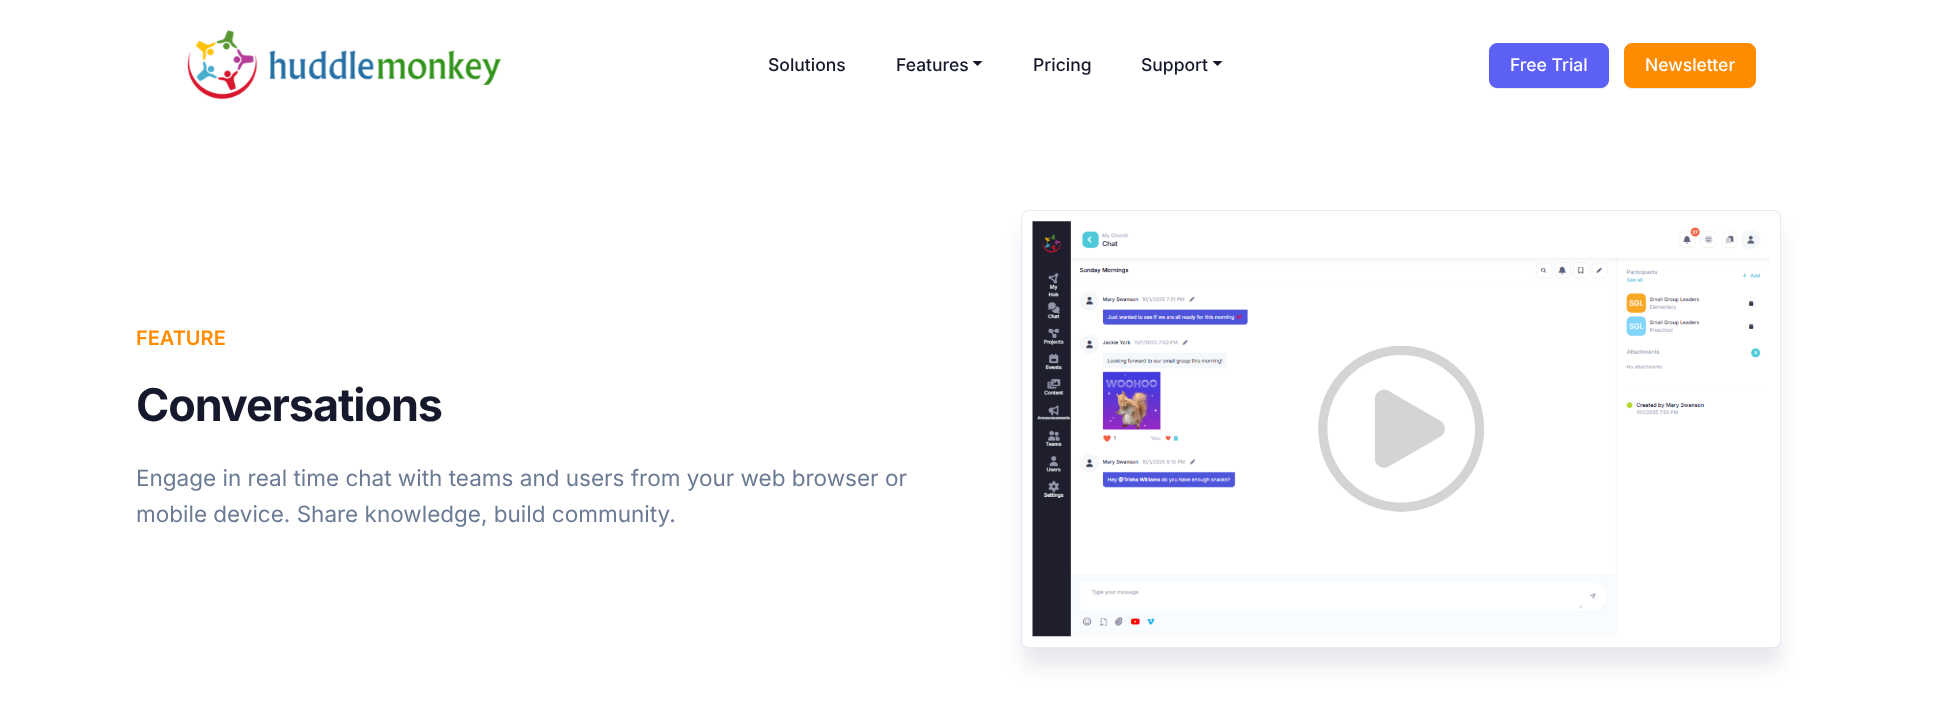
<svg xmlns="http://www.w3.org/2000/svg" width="1942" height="701">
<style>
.a{font:500 17.5px Inter;fill:#16192c}
.b{font:500 17.5px Inter;fill:#fff}
.c{font:600 20px Inter;fill:#ff8c00}
.d{font:bold 45px Inter;letter-spacing:-1.1px;fill:#16192c}
.e{font:22.5px Inter;fill:#6b7b93}
</style>
<rect width="100%" height="100%" fill="#fff"/>
<image href="1.png" x="187" y="30" width="315" height="70"/>
<path fill="#16192c" d="M972.5 61h10l-5 5z"/>
<path fill="#16192c" d="M1212.5 61h10l-5 5z"/>
<rect fill="#00000012" filter="blur(0.5px)" x="1489" y="44" width="120" height="45" rx="8"/>
<rect fill="#5c60f5" stroke="#5c60f5" x="1489.5" y="43.5" width="119" height="44" rx="7.5"/>
<rect fill="#00000012" filter="blur(0.5px)" x="1624" y="44" width="132" height="45" rx="8"/>
<rect fill="#ff8c00" stroke="#ff8c00" x="1624.5" y="43.5" width="131" height="44" rx="7.5"/>
<rect fill="#0a16460f" filter="blur(0.5px)" x="1021" y="210" width="760" height="438" rx="8"/>
<rect fill="#0a16461a" filter="blur(10px)" x="1023" y="231" width="757" height="435" rx="6"/>
<rect fill="#fff" stroke="#e7eaf0" x="1021.5" y="210.5" width="759" height="437" rx="7.5"/>
<image href="2.png" x="1032" y="221" width="738" height="416"/>
<text class="a" x="768" y="71">Solutions</text>
<text class="a" x="896" y="71">Features</text>
<text class="a" x="1033" y="71">Pricing</text>
<text class="a" x="1141" y="71">Support</text>
<text class="b" x="1510" y="71">Free Trial</text>
<text class="b" x="1645" y="71">Newsletter</text>
<text class="c" x="136" y="345">FEATURE</text>
<text class="d" x="136" y="421">Conversations</text>
<text class="e" x="136" y="486">Engage in real time chat with teams and users from your web browser or</text>
<text class="e" x="136" y="522">mobile device. Share knowledge, build community.</text>
</svg>
